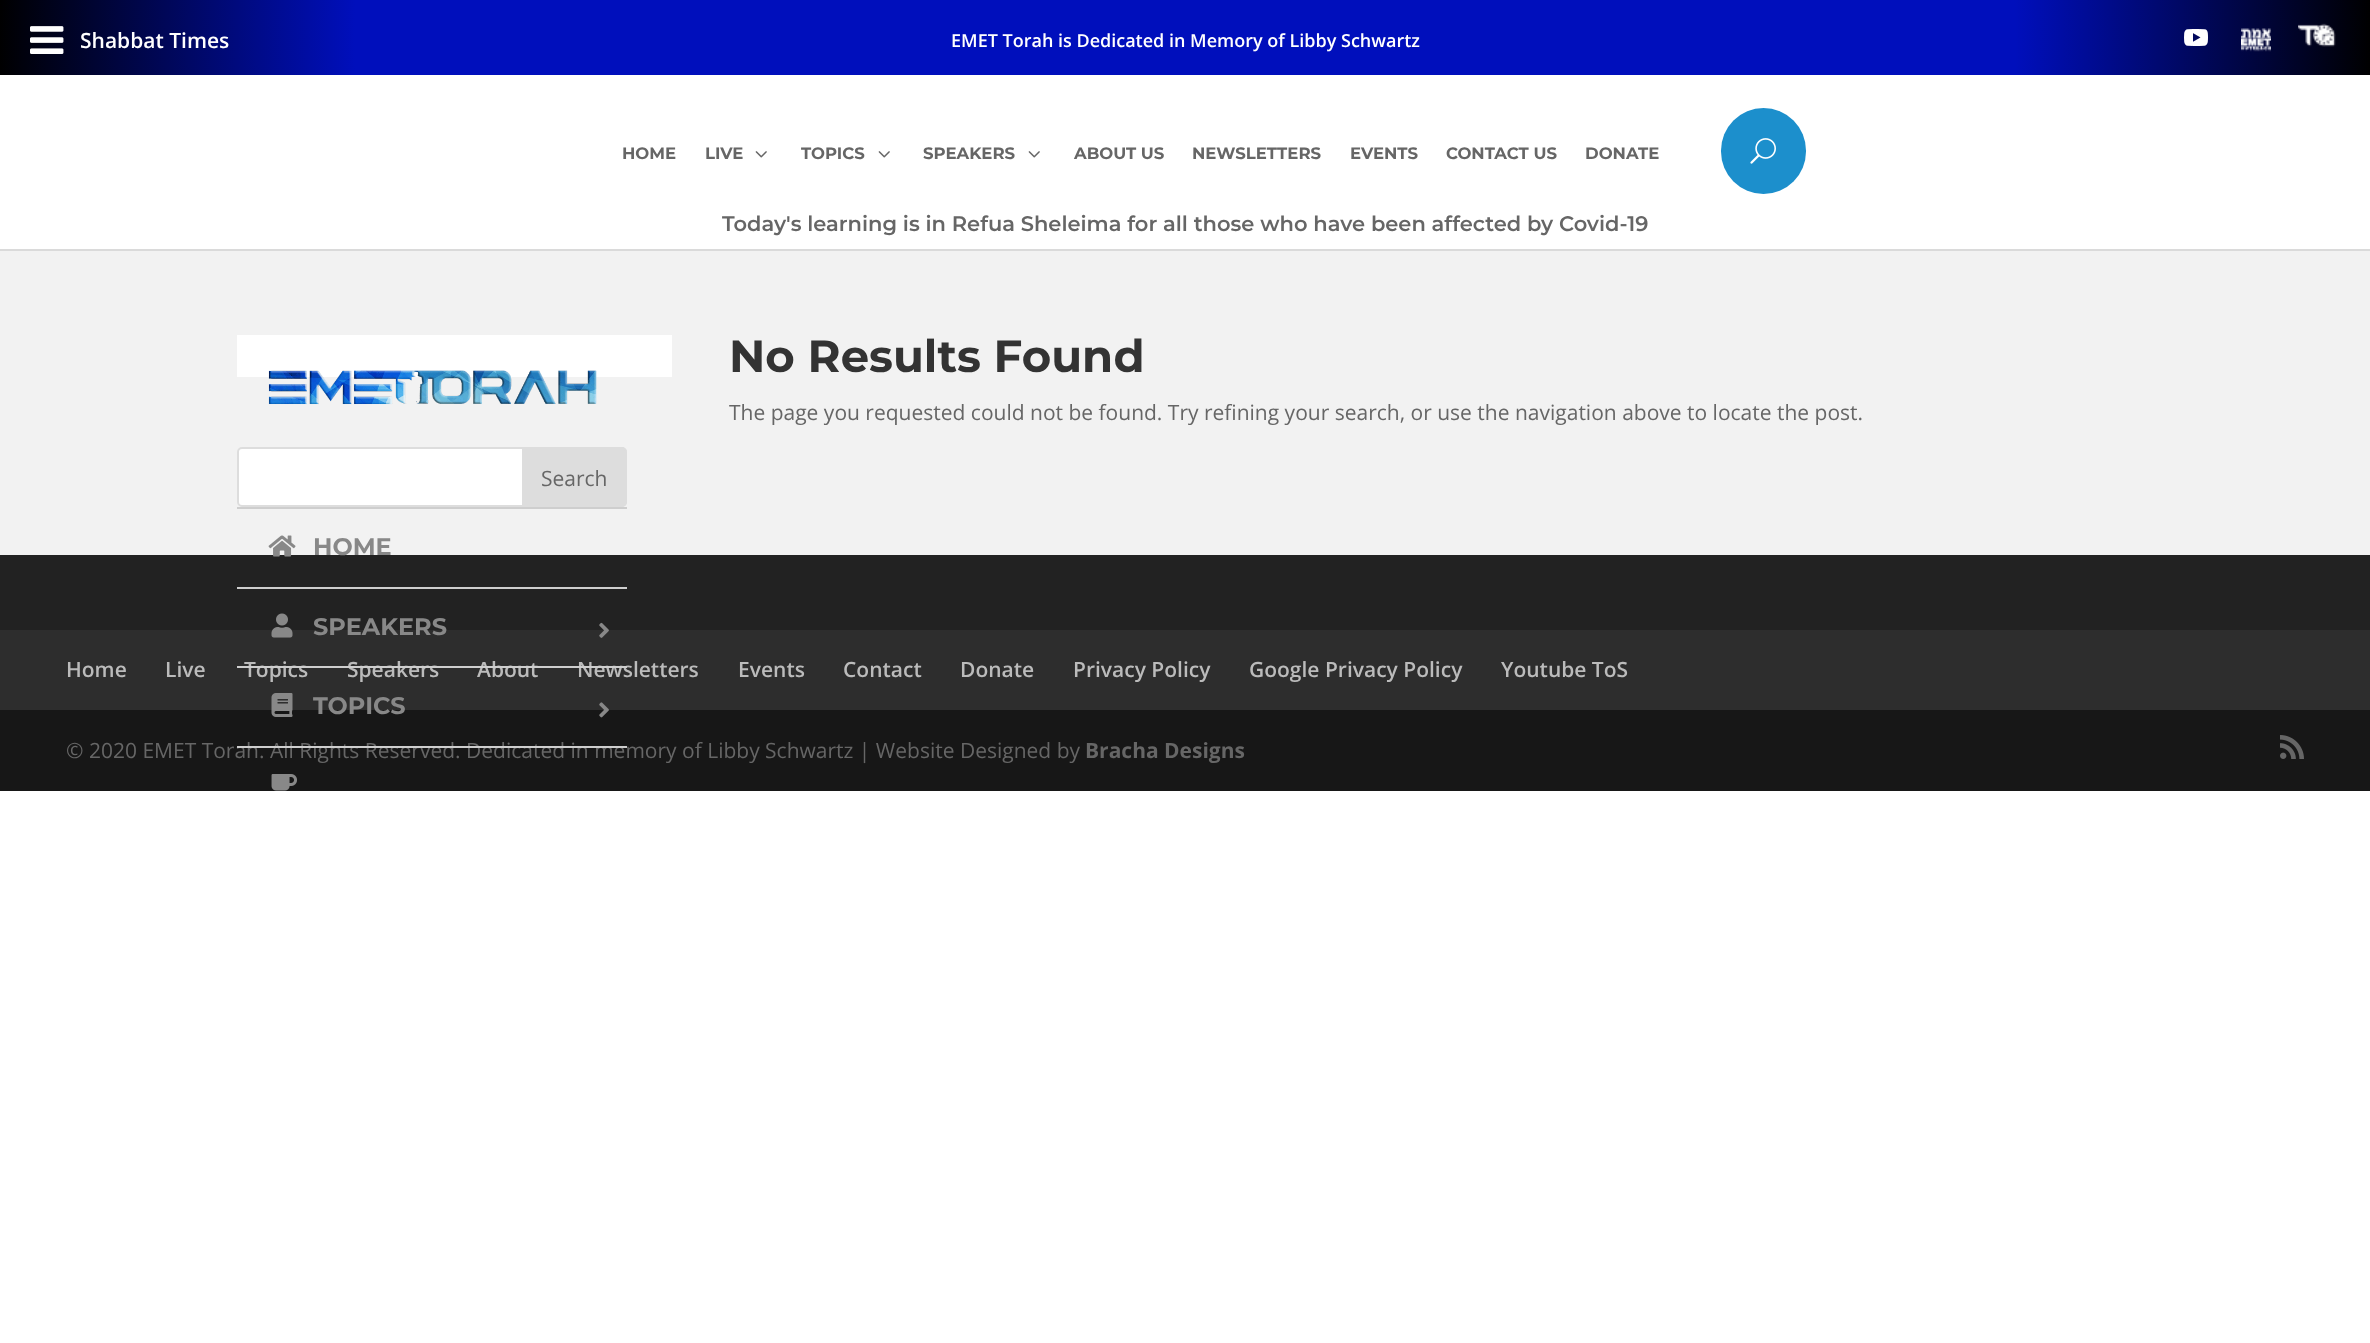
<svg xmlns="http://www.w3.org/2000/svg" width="2370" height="1343">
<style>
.a{font:600 21px Open Sans;fill:#fff}
.b{font:600 18px Open Sans;fill:#fff}
.c{font:bold 16.5px Montserrat;fill:#666}
.d{font:600 21px Montserrat;fill:#666}
.e{font:bold 45px Montserrat;fill:#333}
.f{font:21px Open Sans;fill:#666}
.g{font:bold 24px Montserrat;fill:#888}
.h{font:600 21px Open Sans;fill:#bbb}
.i{font:bold 21px Open Sans;fill:#666}
</style>
<defs>
<radialGradient id="g1" gradientUnits="userSpaceOnUse" cx="1185" cy="41" r="1186"><stop offset="0.7" stop-color="#000fbc"/><stop offset="1" stop-color="#000"/></radialGradient>
</defs>
<rect width="100%" height="100%" fill="#fff"/>
<path fill="url(#g1)" d="M0 0h2370v75H0z"/>
<image href="1.png" x="30" y="26" width="34" height="28"/>
<image href="2.png" x="2184" y="29" width="24" height="17"/>
<image href="3.png" x="2241" y="28" width="30" height="24"/>
<image href="4.png" x="2298" y="23" width="38" height="24"/>
<path fill="#dadada" d="M0 249h2370v2H0z"/>
<image href="5.png" x="755" y="151" width="12" height="7"/>
<image href="5.png" x="878" y="151" width="12" height="7"/>
<image href="5.png" x="1028" y="151" width="12" height="7"/>
<rect fill="#1c8fcc" x="1721" y="108" width="85" height="86" rx="42.5"/>
<image href="6.png" x="1750" y="138" width="26" height="26"/>
<path fill="#f2f2f2" d="M0 251h2370v304H0z"/>
<path fill="#fff" d="M237 335h435v42H237z"/>
<image href="7.png" x="268" y="370" width="329" height="35"/>
<rect fill="#fff" stroke="#ddd" stroke-width="2" x="238" y="448" width="388" height="58" rx="4"/>
<path fill="#ddd" stroke="#ddd" stroke-width="2" d="M523 448h99c2 0 4 2 4 4v50c0 2-2 4-4 4h-99z"/>
<path fill="#cecece" d="M237 507h390v2H237z"/>
<path fill="#222" d="M0 555h2370v75H0z"/>
<image href="8.png" x="268" y="535" width="28" height="22"/>
<path fill="#cecece" d="M237 587h390v2H237z"/>
<path fill="#2d2d2d" d="M0 630h2370v80H0z"/>
<image href="9.png" x="271" y="613" width="22" height="25"/>
<image href="10.png" x="599" y="622" width="10" height="16"/>
<path fill="#171717" d="M0 710h2370v81H0z"/>
<image href="11.png" x="271" y="693" width="22" height="24"/>
<image href="12.png" x="599" y="702" width="10" height="16"/>
<image href="13.png" x="271" y="774" width="26" height="17"/>
<image href="14.png" x="2280" y="735" width="24" height="24"/>
<text class="a" x="80" y="48">Shabbat Times</text>
<text class="b" x="951" y="47">EMET Torah is Dedicated in Memory of Libby Schwartz</text>
<text class="c" x="622" y="159">HOME</text>
<text class="c" x="705" y="159">LIVE</text>
<text class="c" x="801" y="159">TOPICS</text>
<text class="c" x="923" y="159">SPEAKERS</text>
<text class="c" x="1074" y="159">ABOUT US</text>
<text class="c" x="1192" y="159">NEWSLETTERS</text>
<text class="c" x="1350" y="159">EVENTS</text>
<text class="c" x="1446" y="159">CONTACT US</text>
<text class="c" x="1585" y="159">DONATE</text>
<text class="d" x="722" y="231">Today's learning is in Refua Sheleima for all those who have been affected by Covid-19</text>
<text class="e" x="729" y="372">No Results Found</text>
<text class="f" x="729" y="420">The page you requested could not be found. Try refining your search, or use the navigation above to locate the post.</text>
<text class="f" x="541" y="486">Search</text>
<text class="g" x="313" y="555">HOME</text>
<text class="g" x="313" y="635">SPEAKERS</text>
<text class="g" x="313" y="714">TOPICS</text>
<text class="h" x="66" y="677">Home</text>
<text class="h" x="165" y="677">Live</text>
<text class="h" x="244" y="677">Topics</text>
<text class="h" x="347" y="677">Speakers</text>
<text class="h" x="477" y="677">About</text>
<text class="h" x="577" y="677">Newsletters</text>
<path fill="#cecece" d="M237 666h390v2H237z"/>
<text class="h" x="738" y="677">Events</text>
<text class="h" x="843" y="677">Contact</text>
<text class="h" x="960" y="677">Donate</text>
<text class="h" x="1073" y="677">Privacy Policy</text>
<text class="h" x="1249" y="677">Google Privacy Policy</text>
<text class="h" x="1501" y="677">Youtube ToS</text>
<text class="f" x="66" y="758">© 2020 EMET Torah. All Rights Reserved. Dedicated in memory of Libby Schwartz | Website Designed by</text>
<path fill="#cecece" d="M237 746h390v2H237z"/>
<text class="i" x="1085" y="758">Bracha Designs</text>
</svg>
